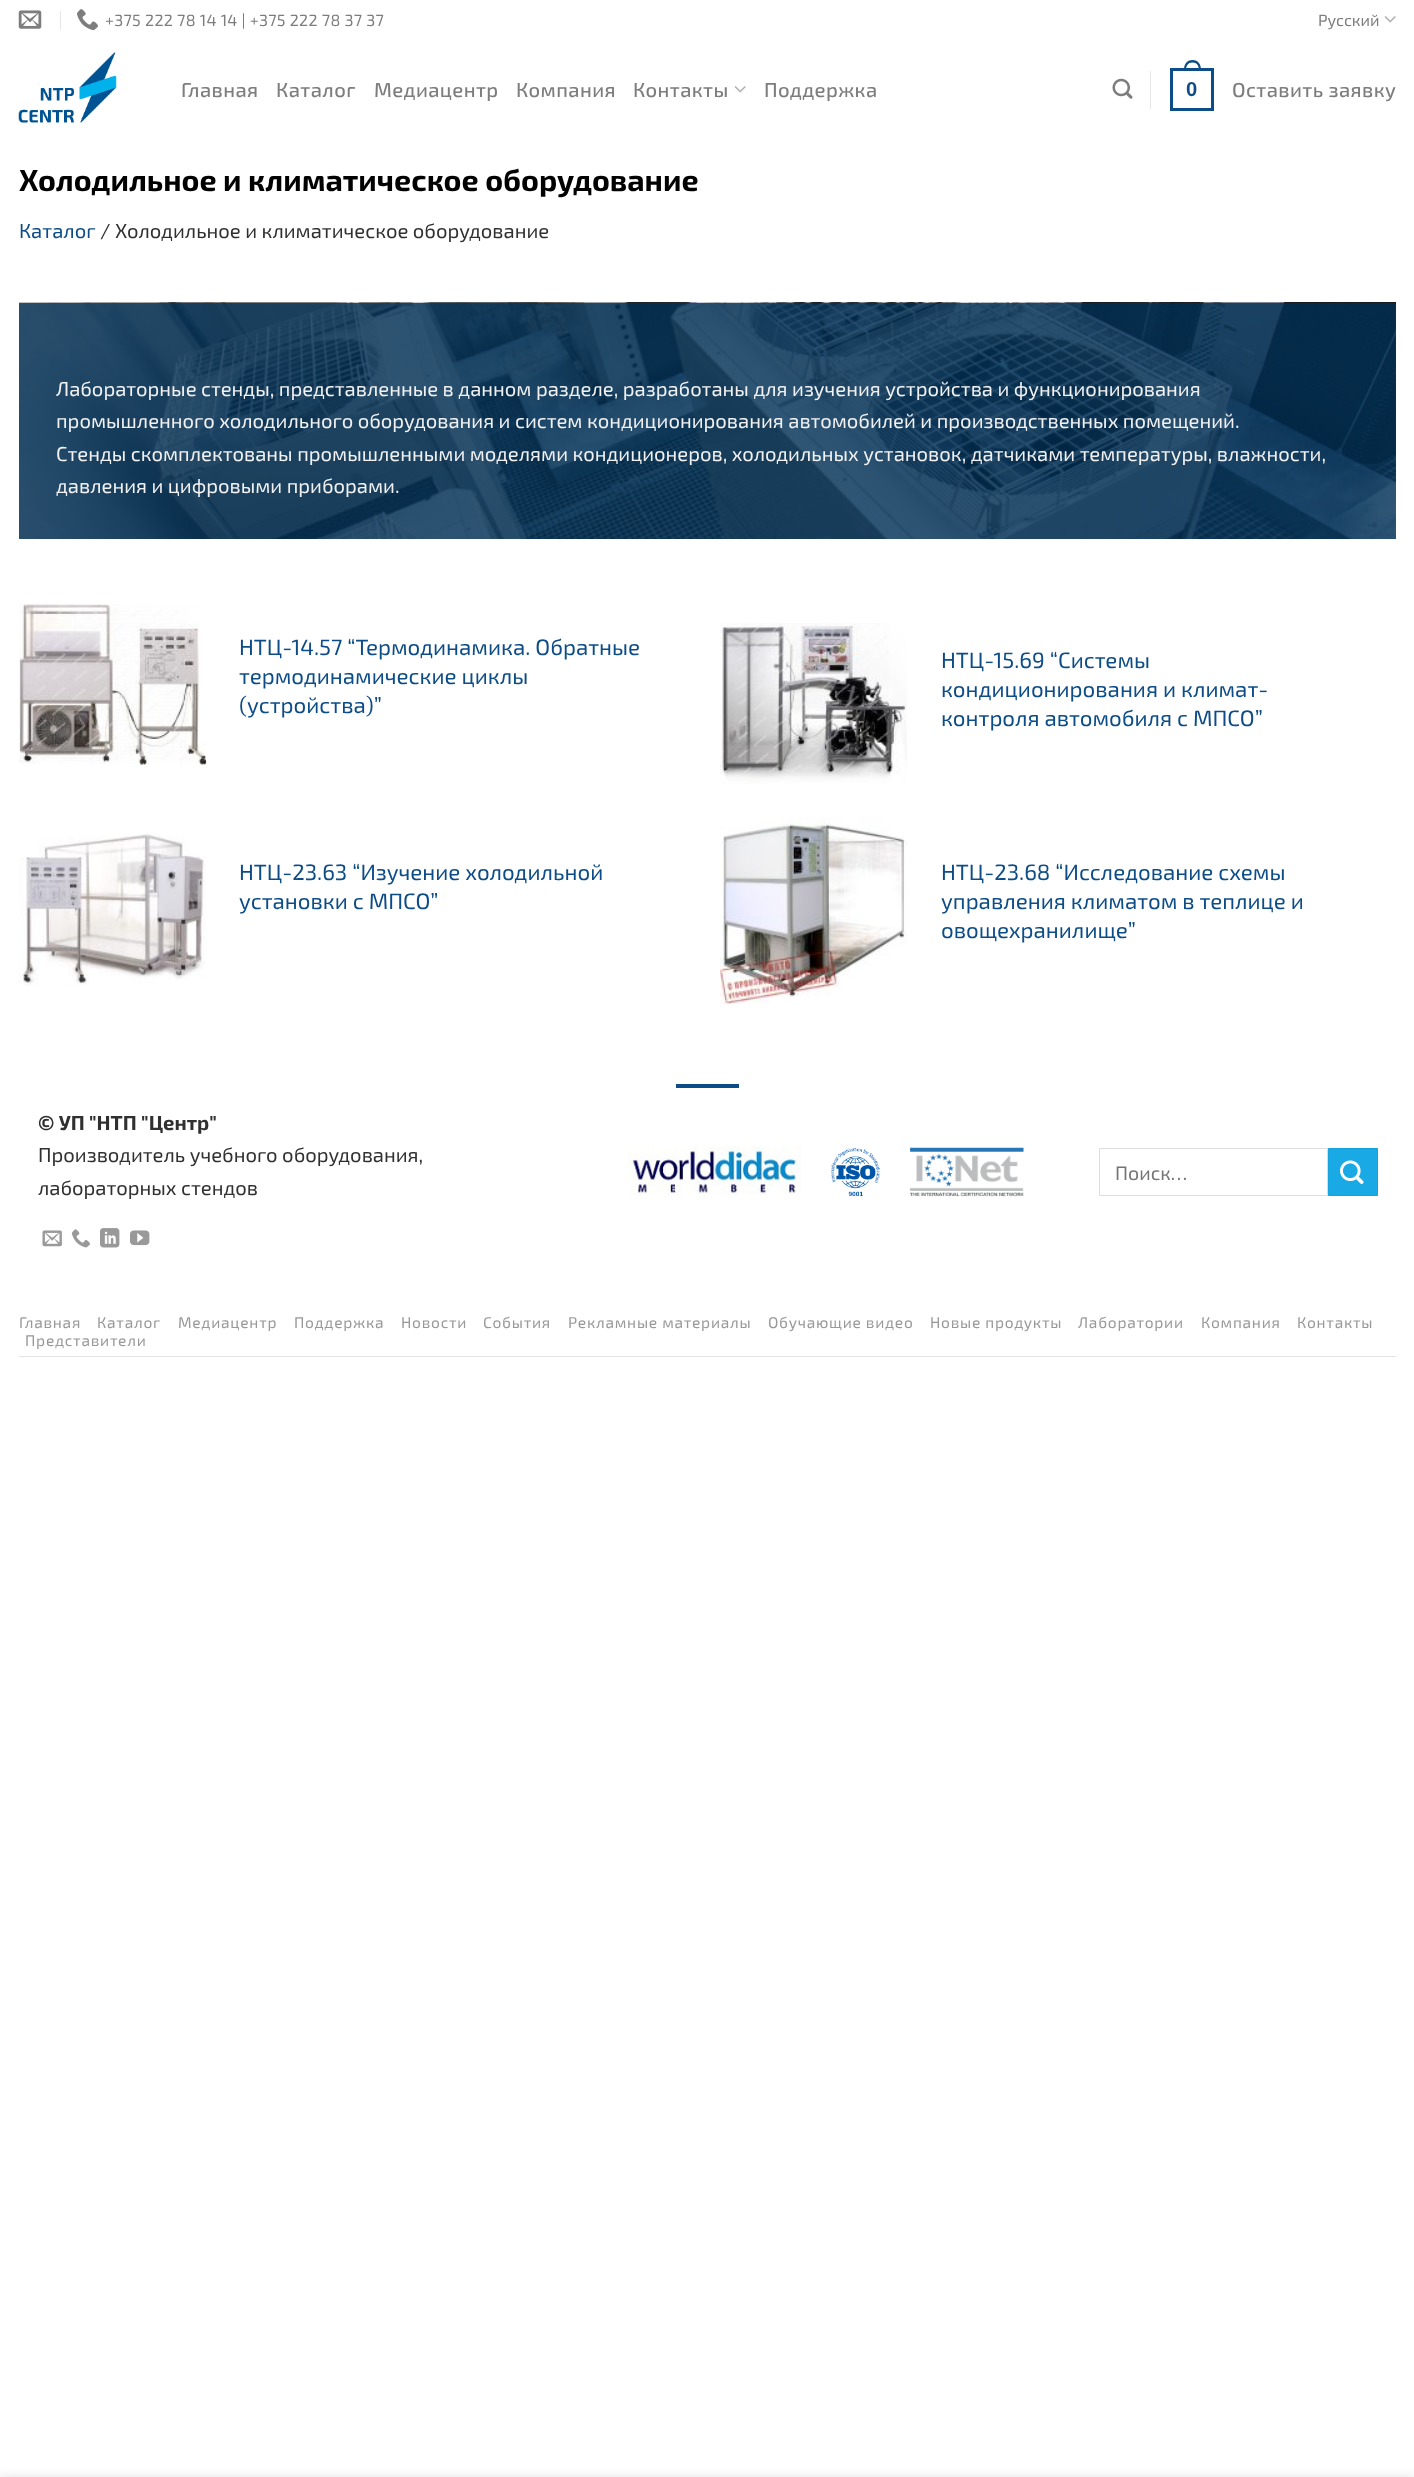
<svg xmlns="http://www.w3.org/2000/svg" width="1414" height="2477">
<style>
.a{font:16.2px 'Exo 2';letter-spacing:0.3px;fill:#7d7d7d}
.b{font:16.2px 'Exo 2';fill:#7d7d7d}
.c{font:500 20.2px 'Exo 2';letter-spacing:0.4px;fill:#7d7d7d}
.d{font:bold 20.2px Liberation Sans;letter-spacing:0.4px;fill:#0c4c87}
.e{font:bold 30.3px 'Exo 2';fill:#000}
.f{font:20.2px 'Exo 2';fill:#0c4c87}
.g{font:20.2px 'Exo 2';fill:#303030}
.h{font:20.2px 'Exo 2';fill:#f1f1f1}
.i{font:22.25px 'Exo 2';fill:#0c4c87}
.j{font:bold 20.2px 'Exo 2';fill:#303030}
.k{font:19.5px 'Exo 2';fill:#757575}
.l{font:15.5px 'Exo 2';letter-spacing:0.75px;fill:#999}
</style>
<rect width="100%" height="100%" fill="#fff"/>
<image href="1.png" x="18" y="10" width="24" height="19"/>
<path fill="#e6e6e6" d="M60 11h1v19H60z"/>
<image href="2.png" x="77" y="9" width="21" height="22"/>
<image href="3.png" x="1384" y="16" width="12" height="7"/>
<image href="4.png" x="18" y="52" width="99" height="71"/>
<image href="3.png" x="734" y="86" width="12" height="7"/>
<image href="5.png" x="1112" y="78" width="21" height="21"/>
<path fill="#e6e6e6" d="M1150 71h1v38H1150z"/>
<path fill="none" stroke="#0c4c87" stroke-width="3" d="M1171.5 69.5h41v40H1171.5z"/>
<path fill="#0c4c87" fill-rule="evenodd" d="M1192.5 60c6 0 8.5 4.5 8.5 10h-17c0-5.5 2.5-10 8.5-10zm0 2.5c4.5 0 6.5 3.5 6.5 7.5h-13c0-4 2-7.5 6.5-7.5z"/>
<image href="6.png" x="19" y="302" width="1377" height="237"/>
<image href="7.png" x="19" y="604" width="188" height="161"/>
<image href="8.png" x="720" y="623" width="187" height="161"/>
<image href="9.png" x="19" y="833" width="187" height="153"/>
<image href="10.png" x="720" y="817" width="187" height="187"/>
<path fill="#0c4c87" d="M676 1084h63v4H676z"/>
<image href="11.png" x="42" y="1230" width="20" height="17"/>
<image href="12.png" x="71" y="1229" width="19" height="19"/>
<image href="13.png" x="100" y="1228" width="20" height="20"/>
<image href="14.png" x="130" y="1230" width="20" height="16"/>
<image href="15.png" x="628" y="1146" width="173" height="49"/>
<image href="16.png" x="831" y="1147" width="49" height="50"/>
<image href="17.png" x="910" y="1147" width="114" height="50"/>
<path fill="none" stroke="#ddd" d="M1099.5 1148.5h228v47H1099.5z"/>
<path fill="#19aae6" stroke="#18a2db" d="M1328.5 1148.5h49v47H1328.5z"/>
<image href="18.png" x="1340" y="1160" width="24" height="24"/>
<path fill="#e4e4e4" d="M19 1356h1377v1H19z"/>
<path fill="#00000024" filter="blur(5.5px)" d="M0 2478h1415v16H0z"/>
<text class="a" x="105" y="26">+375 222 78 14 14 | +375 222 78 37 37</text>
<text class="b" x="1318" y="26">Русский</text>
<text class="c" x="181" y="97">Главная</text>
<text class="c" x="276" y="97">Каталог</text>
<text class="c" x="374" y="97">Медиацентр</text>
<text class="c" x="516" y="97">Компания</text>
<text class="c" x="633" y="97">Контакты</text>
<text class="c" x="764" y="97">Поддержка</text>
<text class="d" x="1186" y="96">0</text>
<text class="c" x="1232" y="97">Оставить заявку</text>
<text class="e" x="19" y="191">Холодильное и климатическое оборудование</text>
<text class="f" x="19" y="238">Каталог</text>
<text class="g" x="100" y="238">/ Холодильное и климатическое оборудование</text>
<text class="h" x="56" y="396">Лабораторные стенды, представленные в данном разделе, разработаны для изучения устройства и функционирования</text>
<text class="h" x="56" y="428">промышленного холодильного оборудования и систем кондиционирования автомобилей и производственных помещений.</text>
<text class="h" x="56" y="461">Стенды скомплектованы промышленными моделями кондиционеров, холодильных установок, датчиками температуры, влажности,</text>
<text class="h" x="56" y="493">давления и цифровыми приборами.</text>
<text class="i" x="239" y="655">НТЦ-14.57 “Термодинамика. Обратные</text>
<text class="i" x="239" y="684">термодинамические циклы</text>
<text class="i" x="239" y="713">(устройства)”</text>
<text class="i" x="941" y="668">НТЦ-15.69 “Системы</text>
<text class="i" x="941" y="697">кондиционирования и климат-</text>
<text class="i" x="941" y="726">контроля автомобиля с МПСО”</text>
<text class="i" x="239" y="880">НТЦ-23.63 “Изучение холодильной</text>
<text class="i" x="239" y="909">установки с МПСО”</text>
<text class="i" x="941" y="880">НТЦ-23.68 “Исследование схемы</text>
<text class="i" x="941" y="909">управления климатом в теплице и</text>
<text class="i" x="941" y="938">овощехранилище”</text>
<text class="j" x="38" y="1130">© УП "НТП "Центр"</text>
<text class="g" x="38" y="1162">Производитель учебного оборудования,</text>
<text class="g" x="38" y="1195">лабораторных стендов</text>
<text class="k" x="1115" y="1180">Поиск…</text>
<text class="l" x="19" y="1328">Главная</text>
<text class="l" x="97" y="1328">Каталог</text>
<text class="l" x="178" y="1328">Медиацентр</text>
<text class="l" x="294" y="1328">Поддержка</text>
<text class="l" x="401" y="1328">Новости</text>
<text class="l" x="483" y="1328">События</text>
<text class="l" x="568" y="1328">Рекламные материалы</text>
<text class="l" x="768" y="1328">Обучающие видео</text>
<text class="l" x="930" y="1328">Новые продукты</text>
<text class="l" x="1078" y="1328">Лаборатории</text>
<text class="l" x="1201" y="1328">Компания</text>
<text class="l" x="1297" y="1328">Контакты</text>
<text class="l" x="25" y="1346">Представители</text>
</svg>
